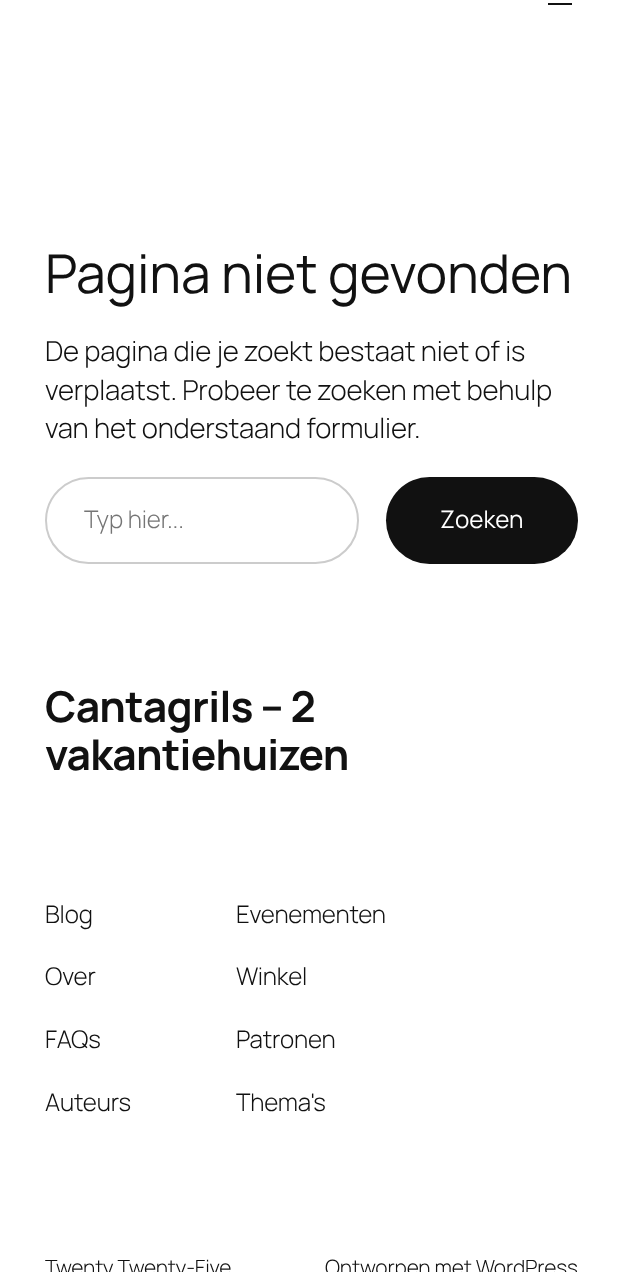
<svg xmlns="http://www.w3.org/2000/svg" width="622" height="1272">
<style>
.a{font:53.5px Manrope;letter-spacing:-0.15px;fill:#111}
.b{font:300 27.6px Manrope;letter-spacing:-0.15px;fill:#111}
.c{font:300 24.25px Manrope;letter-spacing:-0.15px;fill:#757575}
.d{font:24.25px Manrope;fill:#fff}
.e{font:bold 42.5px Manrope;letter-spacing:-0.75px;fill:#111}
.f{font:300 24.25px Manrope;letter-spacing:-0.15px;fill:#111}
.g{font:300 21px Manrope;letter-spacing:-0.15px;fill:#111}
</style>
<rect width="100%" height="100%" fill="#fff"/>
<path fill="#111" d="M548 3h24v2H548z"/>
<rect fill="none" stroke="#ccc" stroke-width="2" x="46" y="478" width="312" height="85" rx="42.5"/>
<rect fill="#111" x="386" y="477" width="192" height="87" rx="43.5"/>
<text class="a" x="45" y="293">Pagina niet gevonden</text>
<text class="b" x="45" y="361">De pagina die je zoekt bestaat niet of is</text>
<text class="b" x="45" y="400">verplaatst. Probeer te zoeken met behulp</text>
<text class="b" x="45" y="438">van het onderstaand formulier.</text>
<text class="c" x="84" y="528">Typ hier...</text>
<text class="d" x="440" y="528">Zoeken</text>
<text class="e" x="45" y="722">Cantagrils – 2</text>
<text class="e" x="45" y="770">vakantiehuizen</text>
<text class="f" x="45" y="923">Blog</text>
<text class="f" x="45" y="985">Over</text>
<text class="f" x="45" y="1048">FAQs</text>
<text class="f" x="45" y="1111">Auteurs</text>
<text class="f" x="236" y="923">Evenementen</text>
<text class="f" x="236" y="985">Winkel</text>
<text class="f" x="236" y="1048">Patronen</text>
<text class="f" x="236" y="1111">Thema's</text>
<text class="g" x="45" y="1275">Twenty Twenty-Five</text>
<text class="g" x="325" y="1275">Ontworpen met WordPress</text>
</svg>
